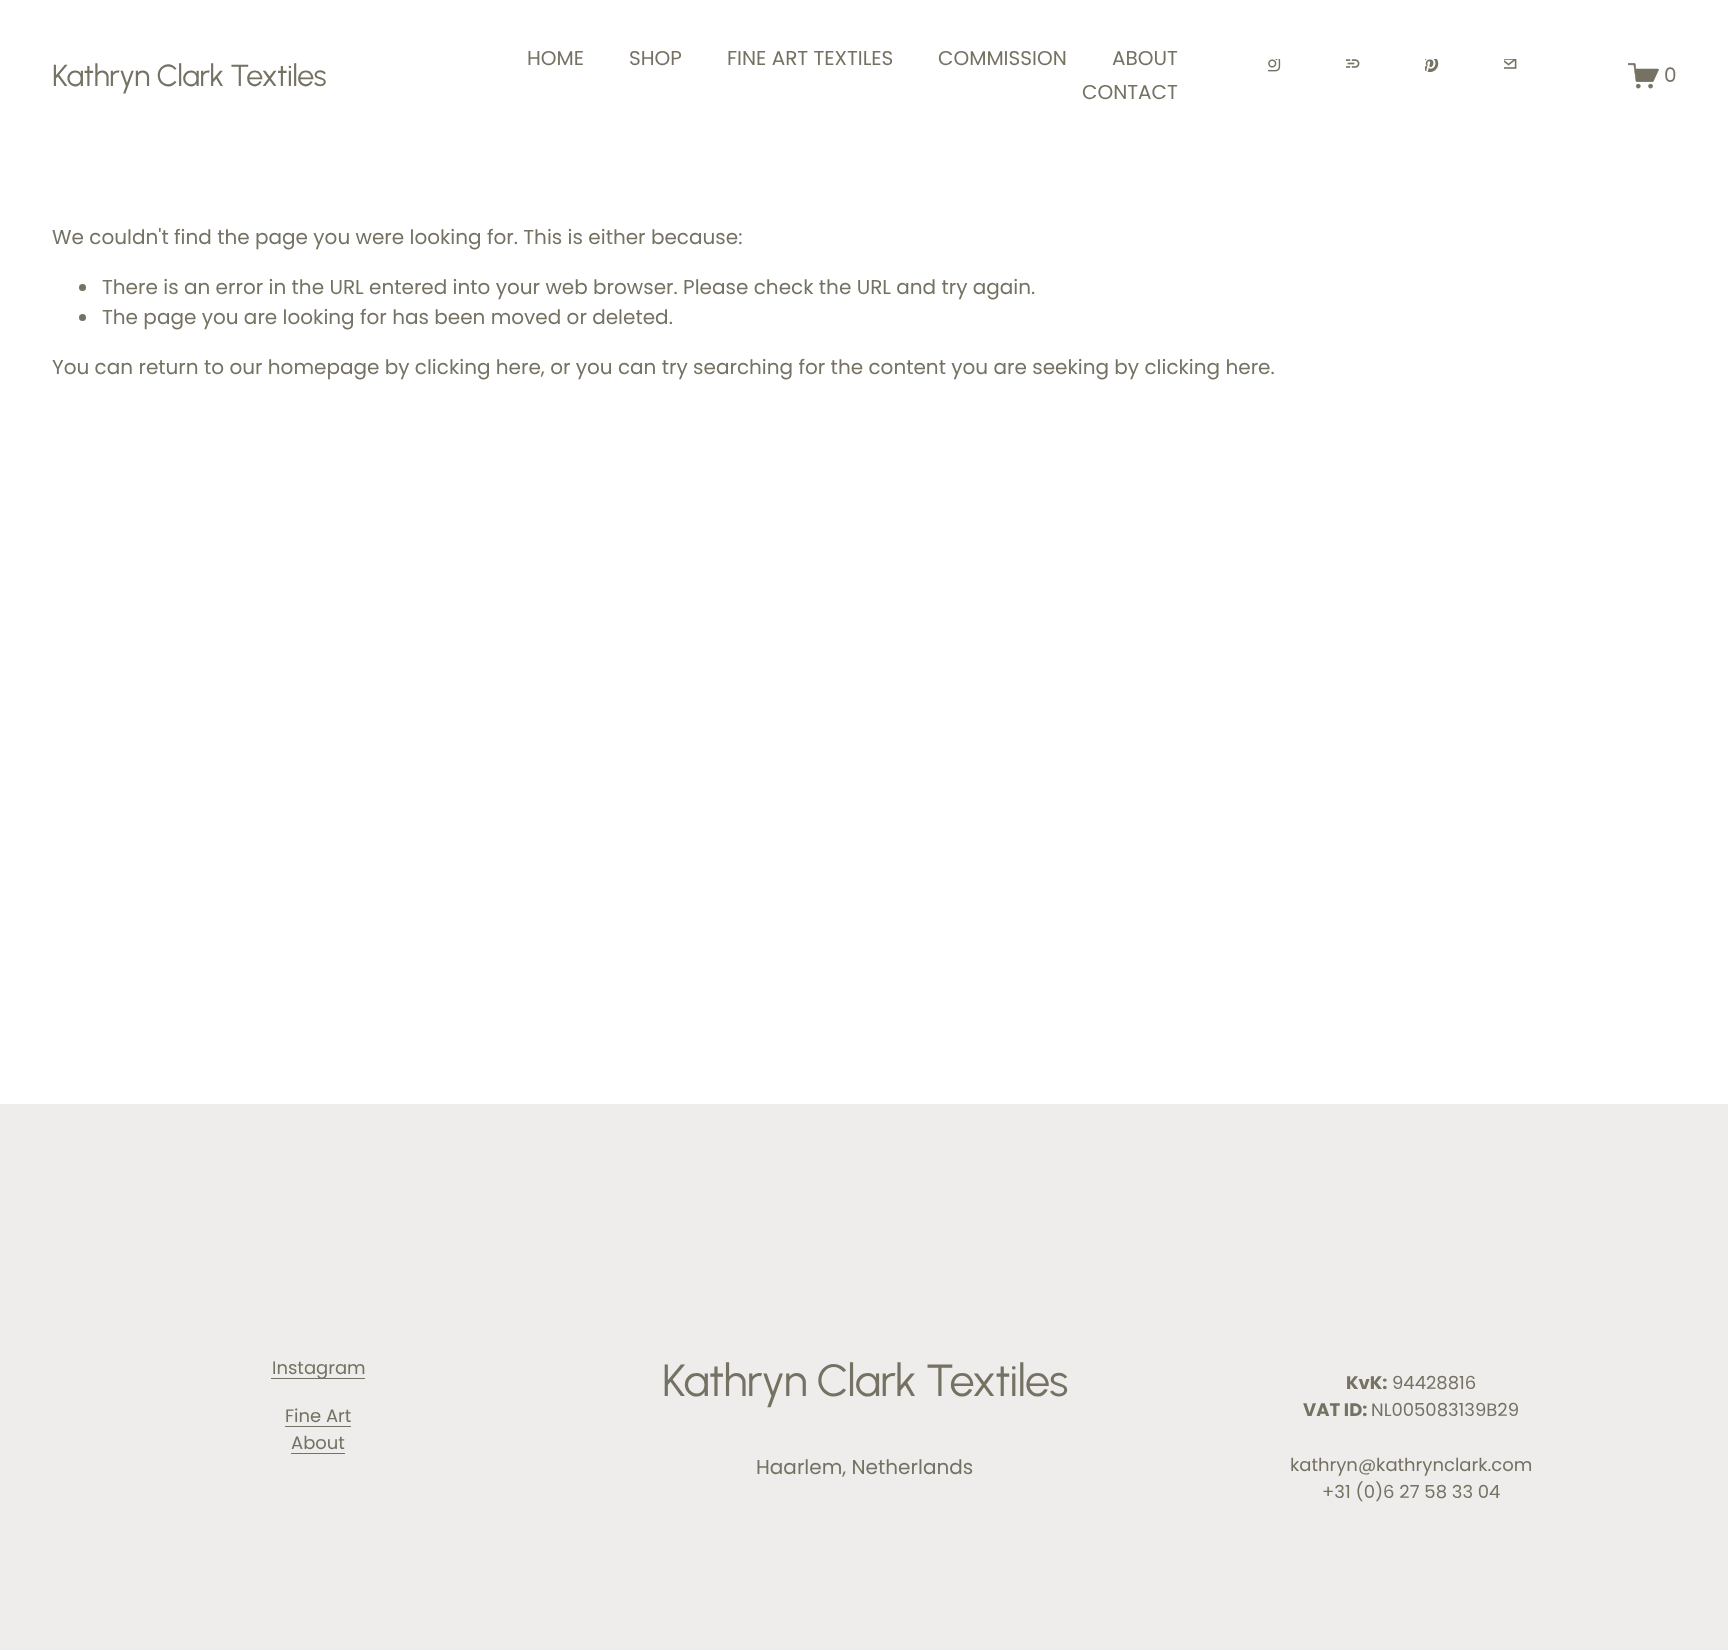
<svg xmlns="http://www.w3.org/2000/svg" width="1728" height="1650">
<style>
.a{font:30.4px Urbanist;letter-spacing:-0.6px;fill:#757263}
.b{font:20px Poppins;fill:#757263}
.c{font:18px Poppins;fill:#757263}
.d{font:45px Urbanist;letter-spacing:-0.9px;fill:#757263}
.e{font:bold 18px Poppins;fill:#757263}
</style>
<rect width="100%" height="100%" fill="#fff"/>
<image href="1.png" x="1268" y="59" width="13" height="13"/>
<image href="2.png" x="1346" y="59" width="14" height="9"/>
<image href="3.png" x="1425" y="59" width="14" height="14"/>
<image href="4.png" x="1504" y="59" width="13" height="10"/>
<image href="5.png" x="1628" y="63" width="31" height="26"/>
<circle fill="#757263" cx="82.5" cy="287.5" r="3.5"/>
<circle fill="#757263" cx="82.5" cy="317.5" r="3.5"/>
<path fill="#eeedeb" d="M0 1104h1728v546H0z"/>
<path fill="#757263" d="M271 1378h94v1H271z"/>
<path fill="#757263" d="M285 1426h66v1H285z"/>
<path fill="#757263" d="M291 1453h54v1H291z"/>
<text class="a" x="52" y="86">Kathryn Clark Textiles</text>
<text class="b" x="527" y="65">HOME</text>
<text class="b" x="629" y="65">SHOP</text>
<text class="b" x="727" y="65">FINE ART TEXTILES</text>
<text class="b" x="938" y="65">COMMISSION</text>
<text class="b" x="1112" y="65">ABOUT</text>
<text class="b" x="1082" y="99">CONTACT</text>
<text class="b" x="1664" y="82">0</text>
<text class="b" x="52" y="244">We couldn't find the page you were looking for. This is either because:</text>
<text class="b" x="102" y="294">There is an error in the URL entered into your web browser. Please check the URL and try again.</text>
<text class="b" x="102" y="324">The page you are looking for has been moved or deleted.</text>
<text class="b" x="52" y="374">You can return to our homepage by clicking here, or you can try searching for the content you are seeking by clicking here.</text>
<text class="c" x="272" y="1374">Instagram</text>
<text class="d" x="662" y="1396">Kathryn Clark Textiles</text>
<text class="e" x="1346" y="1389">KvK:</text>
<text class="c" x="1392" y="1389">94428816</text>
<text class="e" x="1303" y="1416">VAT ID:</text>
<text class="c" x="1371" y="1416">NL005083139B29</text>
<text class="c" x="285" y="1422">Fine Art</text>
<text class="c" x="291" y="1449">About</text>
<text class="b" x="756" y="1474">Haarlem, Netherlands</text>
<text class="c" x="1290" y="1471">kathryn@kathrynclark.com</text>
<text class="c" x="1322" y="1498">+31 (0)6 27 58 33 04</text>
</svg>
